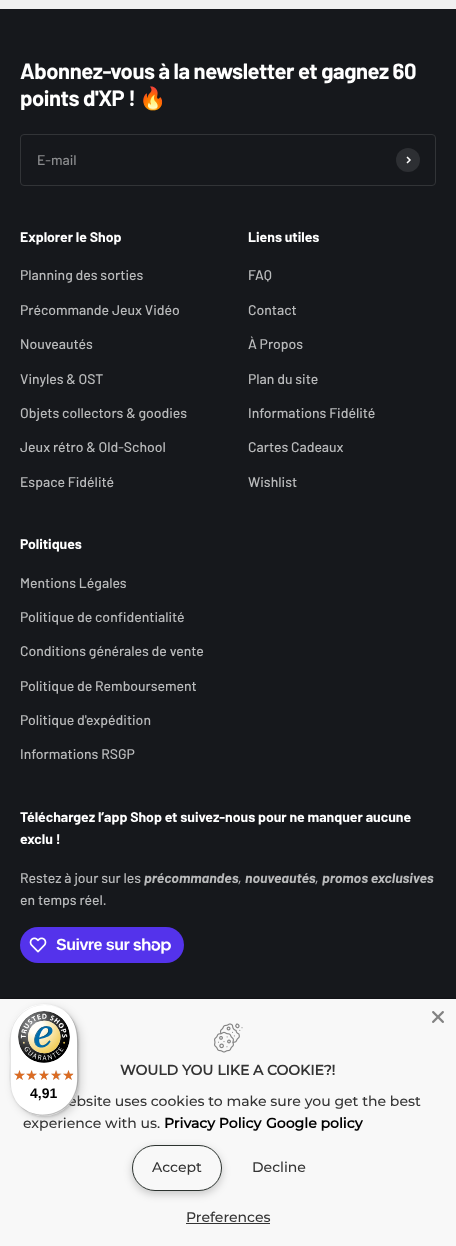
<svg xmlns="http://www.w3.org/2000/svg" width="456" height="1246">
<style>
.a{font:bold 22px Barlow;letter-spacing:-0.45px;fill:#fff}
.b{font:bold 22px Noto Color Emoji;letter-spacing:-0.45px;fill:#fff}
.c{font:500 14px Barlow;fill:#8b8c8e}
.d{font:bold 14px Barlow;fill:#fff}
.e{font:500 14px Barlow;fill:#b9babb}
.f{font:italic bold 14px Barlow;fill:#b9babb}
.g{font:italic 500 14px Barlow;fill:#b9babb}
.h{font:bold 16px Liberation Sans;letter-spacing:-0.5px;fill:#fff}
.i{font:bold 14px Montserrat;fill:#343434}
.j{font:100 14px Montserrat;fill:#343434}
.k{font:bold 14px Montserrat;fill:#000}
.l{font:bold 14px Liberation Sans;fill:#000}
</style>
<rect width="100%" height="100%" fill="#f0f0f0"/>
<path fill="#16181c" d="M0 9h456v990H0z"/>
<rect fill="none" stroke="#323437" x="20.5" y="134.5" width="415" height="51" rx="3.5"/>
<circle fill="#2d2f33" cx="408" cy="160" r="12"/>
<path fill="none" stroke="#fff" stroke-width="1.5" d="M407 163l3-3l-3-3"/>
<rect fill="#5433eb" x="20" y="927" width="164" height="36" rx="18"/>
<image href="1.png" x="29" y="937" width="18" height="16"/>
<image href="2.png" x="133" y="938" width="38" height="16"/>
<path fill="#00000080" filter="blur(1px)" d="M0 999h456v247H0z"/>
<path fill="#f8f8f8" d="M0 999h456v247H0z"/>
<image href="3.png" x="432" y="1011" width="12" height="12"/>
<image href="4.png" x="214" y="1023" width="29" height="30"/>
<rect fill="#00000033" filter="blur(4px)" x="132" y="1148" width="90" height="46" rx="23"/>
<rect fill="#f8f8f8" stroke="#2c332f" x="132.5" y="1145.5" width="89" height="45" rx="22.5"/>
<path fill="#343434" d="M186 1223h84v1H186z"/>
<rect fill="#00000026" filter="blur(4px)" x="13" y="1007" width="68" height="112" rx="34"/>
<rect fill="#00000026" filter="blur(1px)" x="11" y="1005" width="68" height="112" rx="34"/>
<text class="a" x="20" y="79">Abonnez-vous à la newsletter et gagnez 60</text>
<text class="a" x="20" y="106">points d'XP !</text>
<text class="b" x="139" y="106">🔥</text>
<text class="c" x="37" y="165">E-mail</text>
<text class="d" x="20" y="242">Explorer le Shop</text>
<text class="e" x="20" y="280">Planning des sorties</text>
<text class="e" x="20" y="315">Précommande Jeux Vidéo</text>
<text class="e" x="20" y="349">Nouveautés</text>
<text class="e" x="20" y="384">Vinyles &amp; OST</text>
<text class="e" x="20" y="418">Objets collectors &amp; goodies</text>
<text class="e" x="20" y="452">Jeux rétro &amp; Old-School</text>
<text class="e" x="20" y="487">Espace Fidélité</text>
<text class="d" x="248" y="242">Liens utiles</text>
<text class="e" x="248" y="280">FAQ</text>
<text class="e" x="248" y="315">Contact</text>
<text class="e" x="248" y="349">À Propos</text>
<text class="e" x="248" y="384">Plan du site</text>
<text class="e" x="248" y="418">Informations Fidélité</text>
<text class="e" x="248" y="452">Cartes Cadeaux</text>
<text class="e" x="248" y="487">Wishlist</text>
<text class="d" x="20" y="549">Politiques</text>
<text class="e" x="20" y="588">Mentions Légales</text>
<text class="e" x="20" y="622">Politique de confidentialité</text>
<text class="e" x="20" y="656">Conditions générales de vente</text>
<text class="e" x="20" y="691">Politique de Remboursement</text>
<text class="e" x="20" y="725">Politique d'expédition</text>
<text class="e" x="20" y="759">Informations RSGP</text>
<text class="d" x="20" y="822">Téléchargez l’app Shop et suivez-nous pour ne manquer aucune</text>
<text class="d" x="20" y="844">exclu !</text>
<text class="e" x="20" y="883">Restez à jour sur les</text>
<text class="f" x="144" y="883">précommandes</text>
<text class="g" x="238" y="883">,</text>
<text class="f" x="245" y="883">nouveautés</text>
<text class="g" x="315" y="883">,</text>
<text class="f" x="322" y="883">promos exclusives</text>
<text class="e" x="20" y="905">en temps réel.</text>
<text class="h" x="56" y="950">Suivre sur</text>
<text class="i" x="120" y="1075">WOULD YOU LIKE A COOKIE?!</text>
<text class="j" x="68" y="1106">ebsite uses cookies to make sure you get the best</text>
<text class="j" x="23" y="1128">experience with us.</text>
<text class="k" x="164" y="1128">Privacy Policy</text>
<text class="k" x="266" y="1128">Google policy</text>
<text class="j" x="152" y="1172">Accept</text>
<text class="j" x="252" y="1172">Decline</text>
<text class="j" x="186" y="1222">Preferences</text>
<rect fill="#fff" x="10" y="1004" width="68" height="112" rx="34"/>
<path fill="#0000001a" d="M45 1005c8 0 16 3 22 8c-17-15-45-9-54 12c-5 10-3 24-3 35c0 15-3 32 9 45c-5-6-8-14-8-22v-44c0-19 15-34 34-34z"/>
<path fill="#00000033" d="M21 1107c17 15 45 9 54-12c5-10 3-24 3-35c0-15 3-32-9-45c10 13 8 29 8 44c0 11 2 25-3 35c-8 21-36 27-53 13z"/>
<path fill="#32323233" d="M17 1103c7 8 16 13 27 13c19 0 34-15 34-34v-44c0-11-5-20-13-27c7 7 12 16 12 26v44c0 19-15 34-34 34c-10 0-19-5-26-12z"/>
<path fill="#ffffff4d" fill-rule="evenodd" d="M44 1004c19 0 34 15 34 34c0-19-16-34-34-34zm34 78c0 18-16 34-34 34c19 0 34-15 34-34z"/>
<image href="5.png" x="18" y="1011" width="52" height="52"/>
<image href="6.png" x="14" y="1070" width="11" height="10"/>
<image href="7.png" x="27" y="1070" width="10" height="10"/>
<image href="8.png" x="39" y="1070" width="10" height="10"/>
<image href="9.png" x="51" y="1070" width="11" height="10"/>
<image href="9.png" x="63" y="1070" width="11" height="10"/>
<image href="10.png" x="14" y="1070" width="11" height="10"/>
<image href="11.png" x="26" y="1070" width="11" height="10"/>
<image href="12.png" x="39" y="1070" width="10" height="10"/>
<image href="13.png" x="51" y="1070" width="10" height="10"/>
<image href="14.png" x="63" y="1070" width="10" height="10"/>
<text class="l" x="30" y="1098">4,91</text>
</svg>
